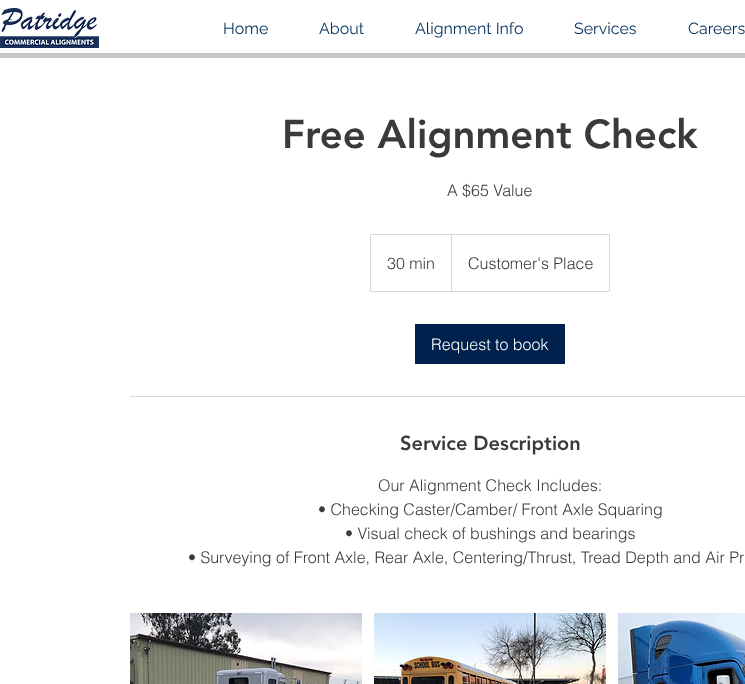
<svg xmlns="http://www.w3.org/2000/svg" width="745" height="684">
<style>
.a{font:16px Raleway;fill:#00305b}
.b{font:900 40px 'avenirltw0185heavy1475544';fill:#3b3a3a}
.c{font:300 16px helvetica;fill:#3b3a3a}
.d{font:300 16px helvetica;fill:#fff}
.e{font:900 20px 'avenirltw0185heavy1475544';fill:#3b3a3a}
</style>
<rect width="100%" height="100%" fill="#fff"/>
<image href="1.png" x="0" y="8" width="99" height="40"/>
<path fill="#c6c6c6" d="M0 53h745v5H0z"/>
<path fill="none" stroke="#d8d8d8" d="M370.5 234.5h239v57H370.5z"/>
<path fill="#d8d8d8" d="M451 291v-57l1 1v56z"/>
<path fill="#00214d" d="M415 324h150v40H415z"/>
<path fill="#d8d8d8" d="M130 396h615v1H130z"/>
<image href="2.png" x="130" y="613" width="232" height="71"/>
<image href="3.png" x="374" y="613" width="232" height="71"/>
<image href="4.png" x="618" y="613" width="127" height="1"/>
<image href="5.png" x="618" y="614" width="127" height="70"/>
<text class="a" x="223" y="34">Home</text>
<text class="a" x="319" y="34">About</text>
<text class="a" x="415" y="34">Alignment Info</text>
<text class="a" x="574" y="34">Services</text>
<text class="a" x="688" y="34">Careers</text>
<text class="b" x="282" y="148">Free Alignment Check</text>
<text class="c" x="447" y="196">A $65 Value</text>
<text class="c" x="387" y="269">30 min</text>
<text class="c" x="468" y="269">Customer's Place</text>
<text class="d" x="431" y="350">Request to book</text>
<text class="e" x="400" y="450">Service Description</text>
<text class="c" x="378" y="491">Our Alignment Check Includes:</text>
<text class="c" x="318" y="515">• Checking Caster/Camber/ Front Axle Squaring</text>
<text class="c" x="345" y="539">• Visual check of bushings and bearings</text>
<text class="c" x="188" y="563">• Surveying of Front Axle, Rear Axle, Centering/Thrust, Tread Depth and Air Pr</text>
</svg>
